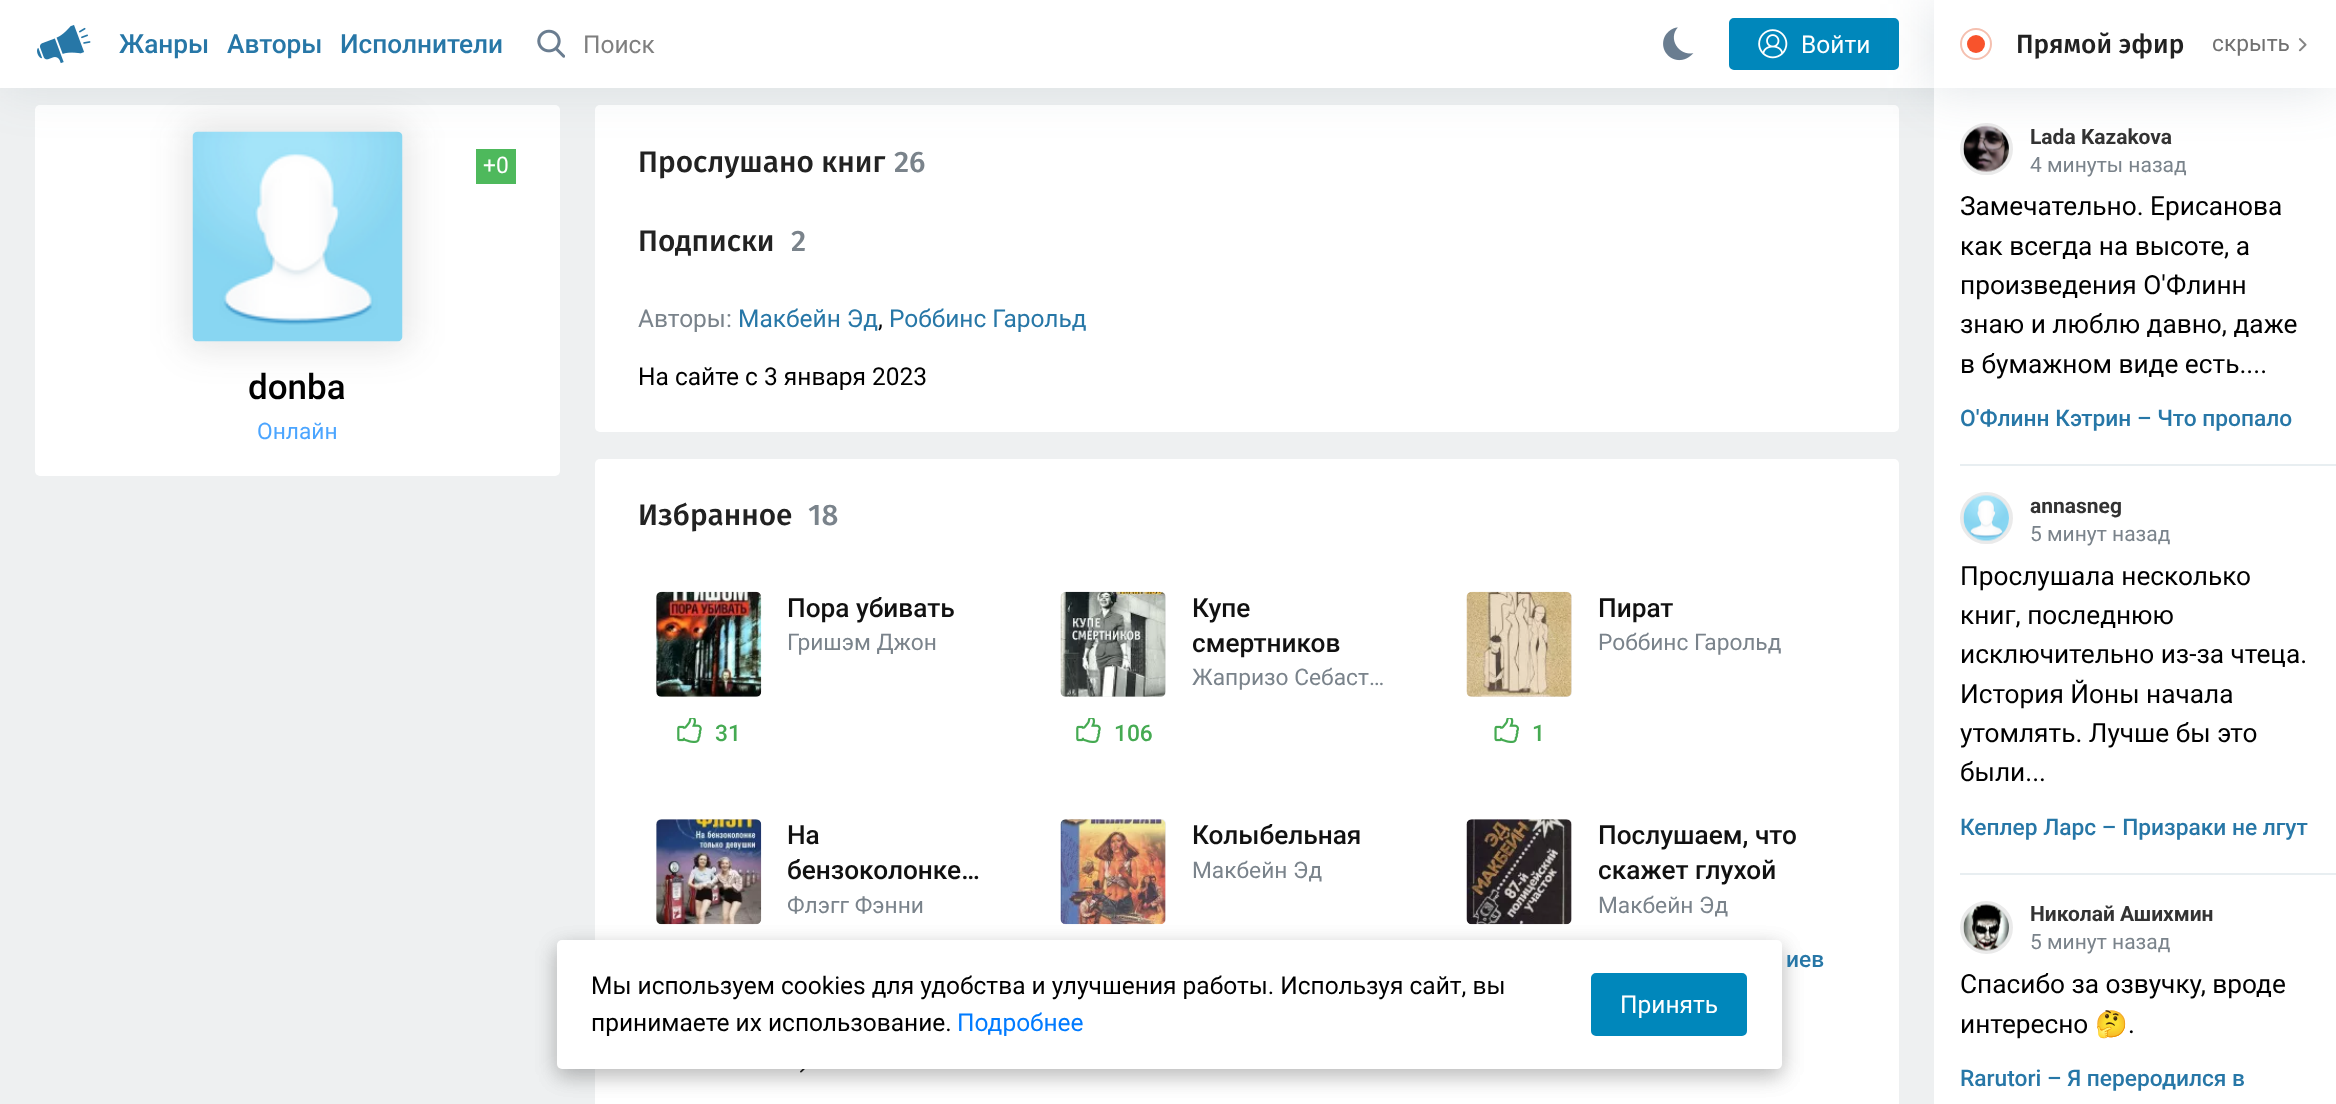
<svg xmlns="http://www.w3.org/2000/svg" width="2336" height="1104">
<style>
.a{font:500 26.25px Roboto;fill:#2777a7}
.b{font:24.5px Roboto;fill:#7f7f7f}
.c{font:24.5px Roboto;fill:#fff}
.d{font:500 26.25px Fira Sans;fill:#222}
.e{font:22.75px Roboto;fill:#717171}
.f{font:bold 21px Roboto;fill:#333}
.g{font:21px Roboto;fill:#7a838b}
.h{font:26.25px Roboto;fill:#000}
.i{font:500 22.75px Roboto;fill:#2777a7}
.j{font:26.25px Noto Color Emoji;fill:#000}
.k{font:22.75px Roboto;fill:#fff}
.l{font:500 35px Roboto;fill:#000}
.m{font:22.75px Roboto;fill:#4ba5ff}
.n{font:500 29.75px Fira Sans;fill:#222}
.o{font:500 29.75px Fira Sans;fill:#7a838b}
.p{font:24.5px Roboto;fill:#7a838b}
.q{font:24.5px Roboto;fill:#2777a7}
.r{font:24.5px Roboto;fill:#000}
.s{font:500 26.25px Roboto;fill:#111}
.t{font:22.75px Roboto;fill:#7a838b}
.u{font:500 22.75px Roboto;fill:#45aa52}
.v{font:24.5px Roboto;fill:#007bff}
</style>
<defs>
<clipPath id="clip1"><path d="M788 819h203v70H788z"/></clipPath>
<clipPath id="clip2"><path d="M788 889h203v35H788z"/></clipPath>
</defs>
<rect width="100%" height="100%" fill="#eef0f1"/>
<rect fill="#fff" x="35" y="105" width="525" height="371" rx="5"/>
<rect fill="#3232321f" filter="blur(17.5px)" x="184" y="123" width="227" height="227" rx="14"/>
<image href="9.png" x="192" y="131" width="211" height="211"/>
<path fill="#4eb95c" d="M476 149h40v35H476z"/>
<rect fill="#fff" x="595" y="105" width="1304" height="327" rx="5"/>
<path fill="#4d67741a" filter="blur(24.5px)" d="M0 4h2336v87H0z"/>
<path fill="#fff" d="M0 0h1934v88H0z"/>
<image href="1.png" x="37" y="25" width="54" height="39"/>
<image href="2.png" x="537" y="29" width="28" height="29"/>
<image href="3.png" x="1663" y="27" width="31" height="34"/>
<rect fill="#0087bb" stroke="#0087bb" stroke-width="2" x="1730" y="19" width="168" height="50" rx="4"/>
<image href="4.png" x="1758" y="29" width="30" height="30"/>
<path fill="#fff" d="M1934 88h402v1016H1934z"/>
<rect fill="none" stroke="#eaeaea" stroke-width="4" x="1962" y="125" width="49" height="48" rx="24"/>
<image href="6.png" x="1963" y="125" width="46" height="47"/>
<path fill="#4d67742b" filter="blur(24.5px)" d="M1930 4h403v87H1930z"/>
<path fill="#fff" d="M1934 0h402v88H1934z"/>
<circle fill="none" stroke="#f5c0b0" stroke-width="2" cx="1976" cy="44" r="15"/>
<circle fill="#f8532c" cx="1976" cy="44" r="9"/>
<image href="5.png" x="2298" y="38" width="9" height="14"/>
<path fill="#e8eef1" d="M1960 464h376v2H1960z"/>
<path fill="#e8eef1" d="M1960 873h376v2H1960z"/>
<rect fill="none" stroke="#eaeaea" stroke-width="4" x="1962" y="494" width="49" height="48" rx="24"/>
<image href="7.png" x="1963" y="495" width="46" height="46"/>
<circle fill="none" stroke="#eaeaea" stroke-width="4" cx="1986.5" cy="927.5" r="24.5"/>
<image href="8.png" x="1963" y="904" width="46" height="47"/>
<rect fill="#fff" x="595" y="459" width="1304" height="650" rx="5"/>
<rect fill="#ebebeb" x="656" y="592" width="105" height="105" rx="5"/>
<image href="10.png" x="656" y="591" width="106" height="106"/>
<image href="11.png" x="677" y="718" width="25" height="25"/>
<rect fill="#ebebeb" x="1061" y="592" width="105" height="105" rx="5"/>
<image href="12.png" x="1060" y="591" width="106" height="106"/>
<image href="11.png" x="1076" y="718" width="25" height="25"/>
<rect fill="#ebebeb" x="1467" y="592" width="105" height="105" rx="5"/>
<image href="13.png" x="1466" y="591" width="106" height="106"/>
<image href="14.png" x="1494" y="718" width="25" height="25"/>
<rect fill="#ebebeb" x="656" y="819" width="105" height="105" rx="5"/>
<image href="15.png" x="656" y="819" width="106" height="106"/>
<rect fill="#ebebeb" x="1061" y="819" width="105" height="105" rx="5"/>
<image href="16.png" x="1060" y="819" width="106" height="106"/>
<rect fill="#ebebeb" x="1467" y="819" width="105" height="105" rx="5"/>
<image href="17.png" x="1466" y="819" width="106" height="106"/>
<image href="18.png" x="800" y="1069" width="5" height="4"/>
<rect fill="#00000026" filter="blur(10.5px)" x="557" y="947" width="1225" height="129" rx="5"/>
<rect fill="#00000026" filter="blur(10.5px)" x="557" y="947" width="1225" height="129" rx="5"/>
<rect fill="#fff" x="557" y="940" width="1225" height="129" rx="5"/>
<rect fill="#0087bb" stroke="#0087bb" stroke-width="2" x="1592" y="974" width="154" height="61" rx="4"/>
<text class="a" x="119" y="53">Жанры</text>
<text class="a" x="227" y="53">Авторы</text>
<text class="a" x="340" y="53">Исполнители</text>
<text class="b" x="583" y="53">Поиск</text>
<text class="c" x="1801" y="53">Войти</text>
<text class="d" x="2016" y="53">Прямой эфир</text>
<text class="e" x="2212" y="51">скрыть</text>
<text class="f" x="2030" y="144">Lada Kazakova</text>
<text class="g" x="2030" y="172">4 минуты назад</text>
<text class="h" x="1960" y="215">Замечательно. Ерисанова</text>
<text class="h" x="1960" y="255">как всегда на высоте, а</text>
<text class="h" x="1960" y="294">произведения О'Флинн</text>
<text class="h" x="1960" y="333">знаю и люблю давно, даже</text>
<text class="h" x="1960" y="373">в бумажном виде есть....</text>
<text class="i" x="1960" y="426">О'Флинн Кэтрин – Что пропало</text>
<text class="f" x="2030" y="513">annasneg</text>
<text class="g" x="2030" y="541">5 минут назад</text>
<text class="h" x="1960" y="585">Прослушала несколько</text>
<text class="h" x="1960" y="624">книг, последнюю</text>
<text class="h" x="1960" y="663">исключительно из-за чтеца.</text>
<text class="h" x="1960" y="703">История Йоны начала</text>
<text class="h" x="1960" y="742">утомлять. Лучше бы это</text>
<text class="h" x="1960" y="781">были...</text>
<text class="i" x="1960" y="835">Кеплер Ларс – Призраки не лгут</text>
<text class="f" x="2030" y="921">Николай Ашихмин</text>
<text class="g" x="2030" y="949">5 минут назад</text>
<text class="h" x="1960" y="993">Спасибо за озвучку, вроде</text>
<text class="h" x="1960" y="1033">интересно</text>
<text class="j" x="2095" y="1033">🤔</text>
<text class="h" x="2128" y="1033">.</text>
<text class="i" x="1960" y="1086">Rarutori – Я переродился в</text>
<text class="k" x="483" y="173">+0</text>
<text class="l" x="248" y="399">donba</text>
<text class="m" x="257" y="439">Онлайн</text>
<text class="n" x="638" y="172">Прослушано книг</text>
<text class="o" x="894" y="172">26</text>
<text class="n" x="638" y="251">Подписки</text>
<text class="o" x="791" y="251">2</text>
<text class="p" x="638" y="327">Авторы:</text>
<text class="q" x="738" y="327">Макбейн Эд</text>
<text class="r" x="878" y="327">,</text>
<text class="q" x="889" y="327">Роббинс Гарольд</text>
<text class="r" x="638" y="385">На сайте с 3 января 2023</text>
<text class="n" x="638" y="525">Избранное</text>
<text class="o" x="808" y="525">18</text>
<text class="s" x="787" y="617">Пора убивать</text>
<text class="t" x="787" y="650">Гришэм Джон</text>
<text class="u" x="715" y="741">31</text>
<text class="s" x="1192" y="617">Купе</text>
<text class="s" x="1192" y="652">смертников</text>
<text class="t" x="1192" y="685">Жапризо Себаст…</text>
<text class="u" x="1114" y="741">106</text>
<text class="s" x="1598" y="617">Пират</text>
<text class="t" x="1598" y="650">Роббинс Гарольд</text>
<text class="u" x="1532" y="741">1</text>
<text class="s" x="787" y="844">На</text>
<g clip-path="url(#clip1)">
<text class="s" x="787" y="879">бензоколонке…</text>
</g>
<g clip-path="url(#clip2)">
<text class="t" x="787" y="913">Флэгг Фэнни</text>
</g>
<text class="s" x="1192" y="844">Колыбельная</text>
<text class="t" x="1192" y="878">Макбейн Эд</text>
<text class="s" x="1598" y="844">Послушаем, что</text>
<text class="s" x="1598" y="879">скажет глухой</text>
<text class="t" x="1598" y="913">Макбейн Эд</text>
<text class="i" x="1786" y="967">иев</text>
<text class="r" x="591" y="994">Мы используем cookies для удобства и улучшения работы. Используя сайт, вы</text>
<text class="r" x="591" y="1031">принимаете их использование.</text>
<text class="v" x="957" y="1031">Подробнее</text>
<text class="c" x="1620" y="1013">Принять</text>
</svg>
